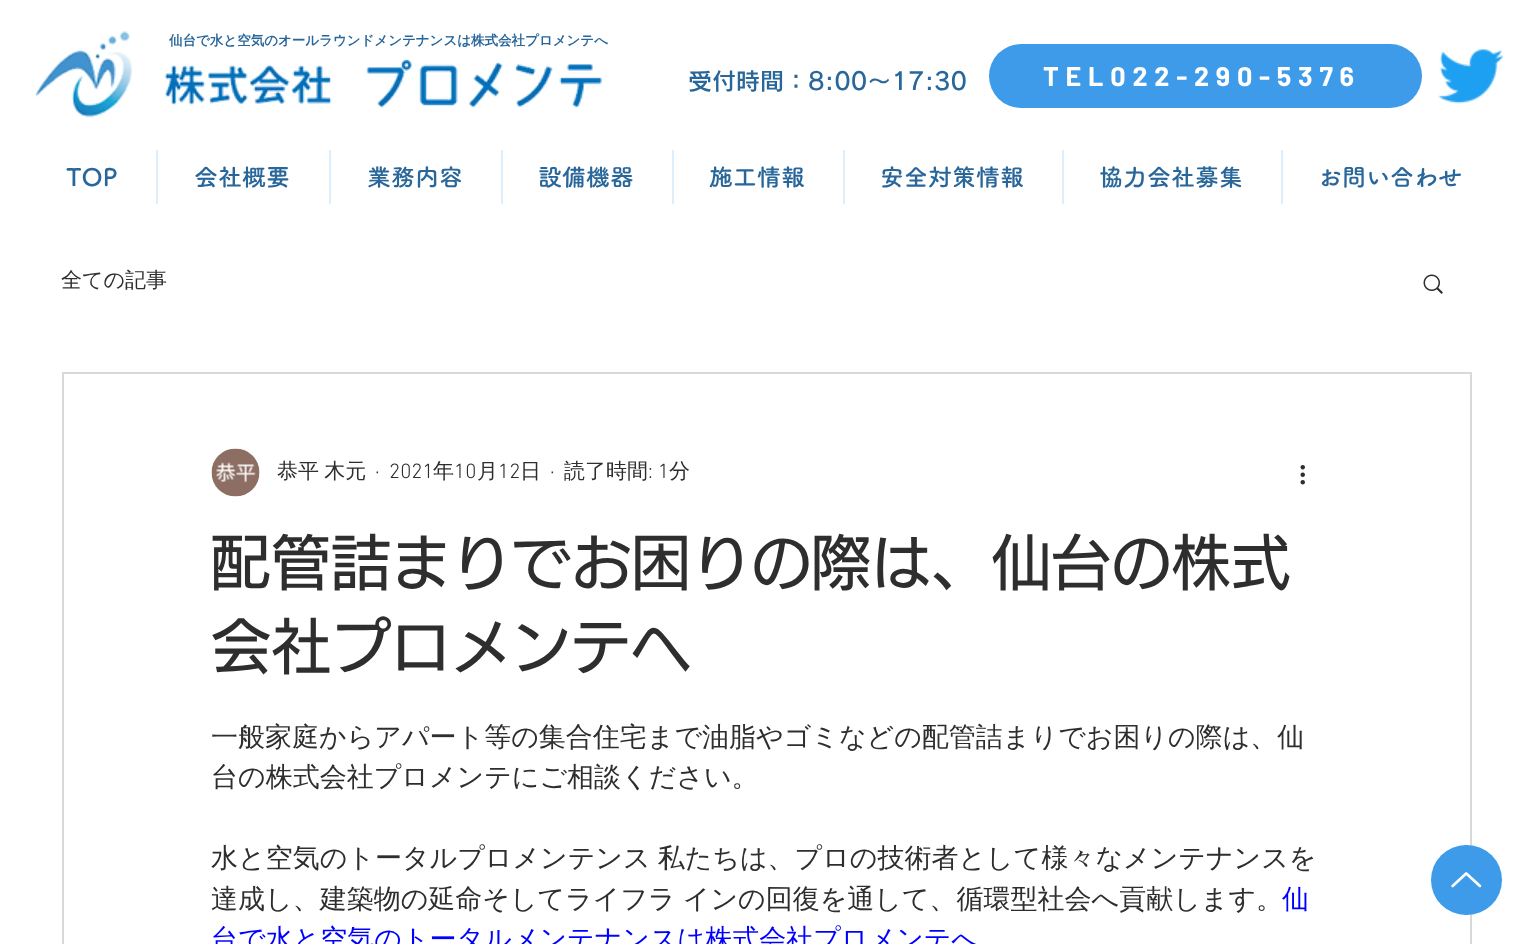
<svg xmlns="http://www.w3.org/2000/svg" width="1531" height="944">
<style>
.a{font:bold 13.5px WenQuanYi Zen Hei;fill:#29679b}
.b{font:600 24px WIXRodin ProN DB;fill:#29679b}
.c{font:bold 27px Barlow;letter-spacing:6.75px;fill:#fff}
.d{font:bold 24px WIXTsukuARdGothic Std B;fill:#29679b}
.e{font:500 21px WenQuanYi Zen Hei;fill:#2f2e2e}
.f{font:300 21px 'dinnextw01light';fill:#2f2e2e}
.g{font:500 60px 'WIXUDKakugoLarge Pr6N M';fill:#2f2e2e}
.h{font:500 27px WenQuanYi Zen Hei;fill:#2f2e2e}
.i{font:500 27px WenQuanYi Zen Hei;fill:#00f}
</style>
<rect width="100%" height="100%" fill="#fff"/>
<image href="1.png" x="35" y="31" width="567" height="87"/>
<rect fill="#3d9be9" x="989" y="44" width="433" height="64" rx="32"/>
<image href="2.png" x="1438" y="48" width="65" height="56"/>
<path fill="#ddeefc" d="M156 150h2v54H156z"/>
<path fill="#ddeefc" d="M329 150h2v54H329z"/>
<path fill="#ddeefc" d="M501 150h2v54H501z"/>
<path fill="#ddeefc" d="M672 150h2v54H672z"/>
<path fill="#ddeefc" d="M843 150h2v54H843z"/>
<path fill="#ddeefc" d="M1062 150h2v54H1062z"/>
<path fill="#ddeefc" d="M1281 150h2v54H1281z"/>
<image href="3.png" x="1423" y="274" width="20" height="20"/>
<path fill="none" stroke="#d9d9d9" stroke-width="2" d="M63 373h1408v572H63z"/>
<image href="4.png" x="211" y="448" width="49" height="49"/>
<image href="5.png" x="1300" y="465" width="5" height="20"/>
<rect fill="#3d9be9" x="1431" y="845" width="71" height="70" rx="35"/>
<image href="6.png" x="1451" y="872" width="31" height="16"/>
<text class="a" x="169" y="45">仙台で水と空気のオールラウンドメンテナンスは株式会社プロメンテへ</text>
<text class="b" x="688" y="90">受付時間：8:00～17:30</text>
<text class="c" x="1043" y="86">TEL022-290-5376</text>
<text class="d" x="66" y="186">TOP</text>
<text class="d" x="194" y="186">会社概要</text>
<text class="d" x="367" y="186">業務内容</text>
<text class="d" x="538" y="186">設備機器</text>
<text class="d" x="709" y="186">施工情報</text>
<text class="d" x="880" y="186">安全対策情報</text>
<text class="d" x="1099" y="186">協力会社募集</text>
<text class="d" x="1318" y="186">お問い合わせ</text>
<text class="e" x="61" y="287">全ての記事</text>
<text class="e" x="277" y="478" word-spacing="-1">恭平 木元</text>
<text class="f" x="375" y="478">·</text>
<text class="f" x="389" y="478">2021</text>
<text class="e" x="433" y="478">年</text>
<text class="f" x="454" y="478">10</text>
<text class="e" x="477" y="478">月</text>
<text class="f" x="498" y="478">12</text>
<text class="e" x="520" y="478">日</text>
<text class="f" x="550" y="478">·</text>
<text class="e" x="564" y="478">読了時間</text>
<text class="f" x="648" y="478">: 1</text>
<text class="e" x="669" y="478">分</text>
<text class="g" x="211" y="585">配管詰まりでお困りの際は、仙台の株式</text>
<text class="g" x="211" y="669">会社プロメンテへ</text>
<text class="h" x="211" y="746">一般家庭からアパート等の集合住宅まで油脂やゴミなどの配管詰まりでお困りの際は、仙</text>
<text class="h" x="211" y="786">台の株式会社プロメンテにご相談ください。</text>
<text class="h" x="211" y="867" word-spacing="-1">水と空気のトータルプロメンテンス 私たちは、プロの技術者として様々なメンテナンスを</text>
<text class="h" x="211" y="908" word-spacing="-1">達成し、建築物の延命そしてライフラ インの回復を通して、循環型社会へ貢献します。</text>
<text class="i" x="1282" y="908">仙</text>
<text class="i" x="211" y="948">台で水と空気のトータルメンテナンスは株式会社プロメンテへ</text>
</svg>
